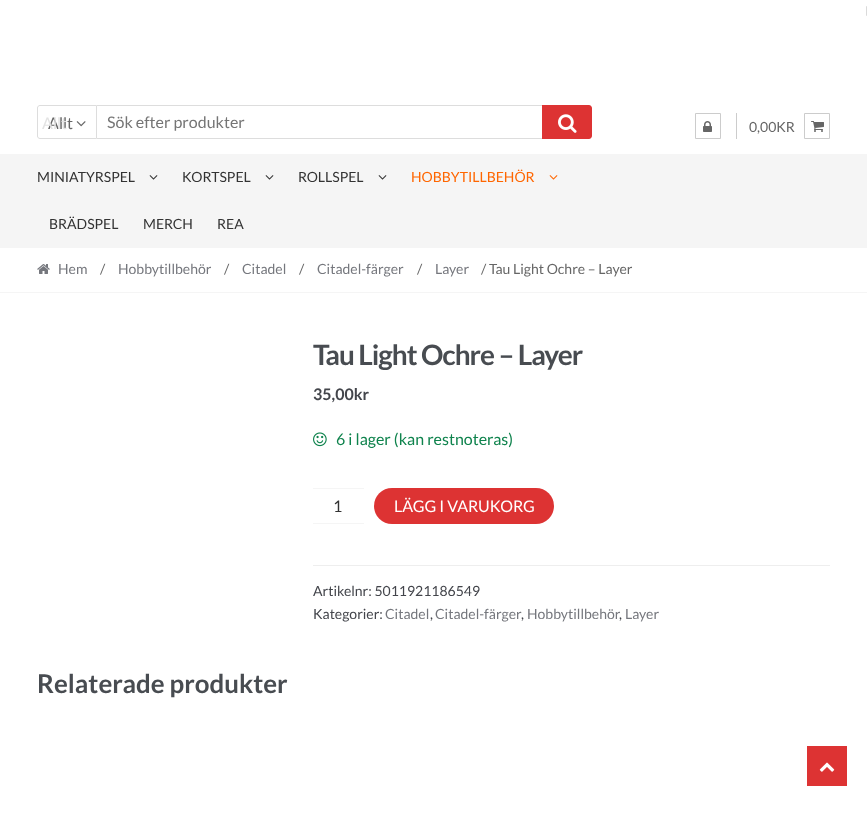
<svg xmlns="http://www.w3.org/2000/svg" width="867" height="826">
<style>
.a{font:10px Lato;fill:#ccc}
.b{font:16px Lato;fill:#666}
.c{font:16px Lato;fill:#e3e3e3}
.d{font:16px Lato;fill:#757575}
.e{font:14px Lato;fill:#666}
.f{font:14px Lato;fill:#333}
.g{font:14px Lato;fill:#f60}
.h{font:14px Lato;fill:#75777d}
.i{font:bold 28px Lato;letter-spacing:-1px;fill:#484c51}
.j{font:bold 16px Lato;fill:#43454b}
.k{font:16px Lato;fill:#0f834d}
.l{font:16px Lato;fill:#333}
.m{font:16px Lato;fill:#fff}
.n{font:14px Lato;fill:#43454b}
.o{font:bold 25.9px Lato;fill:#484c51}
</style>
<rect width="100%" height="100%" fill="#fff"/>
<path fill="none" stroke="#ddd" d="M40 105.5h56.5v33h-56.5c-1.5 0-2.5-1-2.5-2.5v-28c0-1.5 1-2.5 2.5-2.5z"/>
<image href="1.png" x="76" y="121" width="10" height="6"/>
<path fill="#ddd" d="M97 105h445v1H97z"/>
<path fill="#ddd" d="M97 138h445v1H97z"/>
<path fill="#d33" d="M542 105h47c1.5 0 3 1.5 3 3v28c0 1.5-1.5 3-3 3h-47z"/>
<image href="2.png" x="558" y="114" width="19" height="19"/>
<path fill="#ccc" d="M736 113h1v26H736z"/>
<path fill="none" stroke="#ccc" d="M695.5 113.5h25v25H695.5z"/>
<image href="3.png" x="703" y="121" width="9" height="11"/>
<path fill="none" stroke="#ccc" d="M804.5 113.5h25v25H804.5z"/>
<image href="4.png" x="811" y="121" width="13" height="11"/>
<path fill="#f5f5f5" d="M0 154h867v94H0z"/>
<image href="5.png" x="149" y="175" width="9" height="5"/>
<image href="5.png" x="265" y="175" width="9" height="5"/>
<image href="5.png" x="378" y="175" width="9" height="5"/>
<image href="6.png" x="549" y="175" width="9" height="5"/>
<path fill="#f5f5f5" d="M0 292h867v1H0z"/>
<image href="7.png" x="37" y="264" width="13" height="10"/>
<image href="8.png" x="313" y="432" width="14" height="15"/>
<path fill="#f5f5f5" d="M313 488h51v1H313z"/>
<path fill="#f5f5f5" d="M313 523h51v1H313z"/>
<rect fill="#d33" x="374" y="488" width="180" height="36" rx="18"/>
<path fill="#eee" d="M313 565h517v1H313z"/>
<path fill="#d33" d="M807 746h40v40H807z"/>
<image href="9.png" x="819" y="762" width="16" height="10"/>
<text class="a" x="865" y="14">|</text>
<text class="b" x="48" y="129">Allt</text>
<text class="c" x="42" y="129">Allt</text>
<text class="d" x="107" y="128">Sök efter produkter</text>
<text class="e" x="749" y="132">0,00KR</text>
<text class="f" x="37" y="182">MINIATYRSPEL</text>
<text class="f" x="182" y="182">KORTSPEL</text>
<text class="f" x="298" y="182">ROLLSPEL</text>
<text class="g" x="411" y="182">HOBBYTILLBEHÖR</text>
<text class="f" x="49" y="229">BRÄDSPEL</text>
<text class="f" x="143" y="229">MERCH</text>
<text class="f" x="217" y="229">REA</text>
<text class="h" x="58" y="274">Hem</text>
<text class="e" x="100" y="274">/</text>
<text class="h" x="118" y="274">Hobbytillbehör</text>
<text class="e" x="224" y="274">/</text>
<text class="h" x="242" y="274">Citadel</text>
<text class="e" x="299" y="274">/</text>
<text class="h" x="317" y="274">Citadel-färger</text>
<text class="e" x="417" y="274">/</text>
<text class="h" x="435" y="274">Layer</text>
<text class="e" x="481" y="274">/ Tau Light Ochre – Layer</text>
<text class="i" x="313" y="365">Tau Light Ochre – Layer</text>
<text class="j" x="313" y="400">35,00kr</text>
<text class="k" x="336" y="445">6 i lager (kan restnoteras)</text>
<text class="l" x="333" y="512">1</text>
<text class="m" x="394" y="512">LÄGG I VARUKORG</text>
<text class="n" x="313" y="596">Artikelnr: 5011921186549</text>
<text class="n" x="313" y="619">Kategorier:</text>
<text class="h" x="385" y="619">Citadel</text>
<text class="n" x="430" y="619">,</text>
<text class="h" x="435" y="619">Citadel-färger</text>
<text class="n" x="521" y="619">,</text>
<text class="h" x="527" y="619">Hobbytillbehör</text>
<text class="n" x="619" y="619">,</text>
<text class="h" x="625" y="619">Layer</text>
<text class="o" x="37" y="693">Relaterade produkter</text>
</svg>
